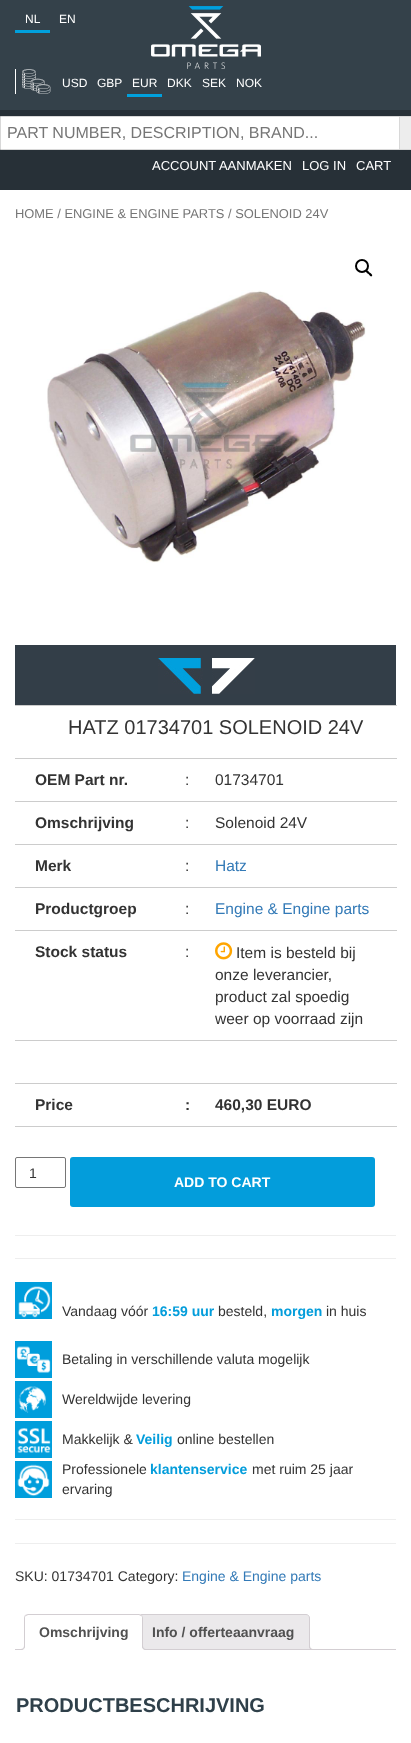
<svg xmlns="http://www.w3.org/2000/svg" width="411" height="1743">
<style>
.a{font:12px Liberation Sans;fill:#fff}
.b{font:16px Liberation Sans;fill:#767676}
.c{font:13px Liberation Sans;fill:#fff}
.d{font:12.9px Liberation Sans;fill:#767676}
.e{font:20px Liberation Sans;fill:#333}
.f{font:bold 15.5px Liberation Sans;fill:#333}
.g{font:15.5px Liberation Sans;fill:#333}
.h{font:15.5px Liberation Sans;fill:#337ab7}
.i{font:14px Liberation Sans;fill:#333}
.j{font:bold 14px Liberation Sans;fill:#fff}
.k{font:bold 14px Liberation Sans;fill:#039ddb}
.l{font:14px Liberation Sans;fill:#337ab7}
.m{font:bold 14px Liberation Sans;fill:#515151}
.n{font:bold 20px Liberation Sans;fill:#2f404a}
</style>
<defs>
<clipPath id="clip1"><path d="M15 1614h381v36H15z"/></clipPath>
</defs>
<rect width="100%" height="100%" fill="#fff"/>
<path fill="#34414a" d="M0 0h411v110H0z"/>
<path fill="#00a0dd" d="M15 30h35v3H15z"/>
<image href="1.png" x="151" y="6" width="110" height="63"/>
<image href="2.png" x="22" y="69" width="29" height="25"/>
<path fill="#fff" d="M15 69h1v25H15z"/>
<path fill="#00a0dd" d="M127 94h35v3H127z"/>
<path fill="#273037" d="M0 110h411v80H0z"/>
<path fill="#ededed" stroke="#d8d8d8" d="M399.5 116.5h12v33H399.5z"/>
<path fill="#fff" stroke="#d8d8d8" d="M0.5 116.5h399v33H0.5z"/>
<circle fill="none" stroke="#000" stroke-width="2" cx="362" cy="266" r="6"/>
<path fill="#000" d="M366 270.5c1.5-1 3 1.5 3.5 2c1 .5 3.5 2.5 2.5 3.5c-1.5 1.5-3-1.5-3.5-2c-1-.5-3.5-2.5-2.5-3.5z"/>
<image href="3.png" x="47" y="290" width="319" height="273"/>
<path fill="#333e48" d="M15 645h381v60H15z"/>
<image href="4.png" x="158" y="658" width="45" height="36"/>
<image href="5.png" x="212" y="658" width="43" height="36"/>
<path fill="#ccc" d="M15 705h382v1H15z"/>
<path fill="#ccc" d="M15 758h382v1H15z"/>
<path fill="#ccc" d="M15 801h382v1H15z"/>
<path fill="#ccc" d="M15 844h382v1H15z"/>
<path fill="#ccc" d="M15 887h382v1H15z"/>
<path fill="#ccc" d="M15 930h382v1H15z"/>
<image href="6.png" x="215" y="942" width="18" height="18"/>
<path fill="#ccc" d="M15 1040h382v1H15z"/>
<path fill="#ccc" d="M15 1083h382v1H15z"/>
<path fill="#ccc" d="M15 1126h382v1H15z"/>
<rect fill="none" stroke="#767676" x="15.5" y="1157.5" width="50" height="30" rx="1.5"/>
<rect fill="#039ddb" x="70" y="1157" width="305" height="50" rx="3"/>
<path fill="#eee" d="M15 1235h381v1H15z"/>
<path fill="#eee" d="M15 1258h381v1H15z"/>
<image href="7.png" x="15" y="1282" width="37" height="37"/>
<image href="8.png" x="15" y="1341" width="37" height="37"/>
<image href="9.png" x="15" y="1381" width="37" height="37"/>
<image href="10.png" x="15" y="1421" width="37" height="37"/>
<image href="11.png" x="15" y="1461" width="37" height="37"/>
<path fill="#eee" d="M15 1519h381v1H15z"/>
<path fill="#eee" d="M15 1543h381v1H15z"/>
<path fill="#ebe9eb" stroke="#d3ced2" d="M141 1614.5h165c2 0 3.5 1.5 3.5 3.5v31.5h-172v-31.5c0-2 1.5-3.5 3.5-3.5z"/>
<g clip-path="url(#clip1)">
<path fill="#ebe9eb" d="M307 1647c0 3.5 1.5 5 5 5v-2c-1.5-.5-2.5-1.5-3-3z"/>
</g>
<path fill="#d3ced2" fill-rule="evenodd" d="M309 1645h5v5c-2.5 0-5-1-5-4zm1 0h4v4c-2 0-4-.5-4-3z"/>
<path fill="#d3ced2" d="M15 1649h381v1H15z"/>
<path fill="#fff" d="M28 1614h111c2 0 4 2 4 4v32h-119v-32c0-2 2-4 4-4z"/>
<path fill="#d3ced2" d="M28 1614l-3 1l1 1l2-1h111l2 1l1-1l-3-1z"/>
<path fill="#d3ced2" d="M143 1650v-32c0-1-.5-2-1-3l-1 1c1 0 1 1 1 2v31z"/>
<path fill="#fff" d="M143 1650l-1-1h-117l-1 1z"/>
<path fill="#d3ced2" d="M24 1650l1-1v-31c0-1 0-2 1-2l-1-1c-.5 1-1 2-1 3z"/>
<g clip-path="url(#clip1)">
<path fill="#fff" d="M22 1650v2c3.5 0 5-1.5 5-5h-2c-.5 1.5-1.5 2.5-3 3z"/>
</g>
<path fill="#d3ced2" fill-rule="evenodd" d="M20 1645h5c0 3.5-1.5 5-5 5zm0 0h4c0 3-1 4-4 4z"/>
<g clip-path="url(#clip1)">
<path fill="#fff" d="M140 1647c0 3.5 1.5 5 5 5v-2c-1.5-.5-2.5-1.5-3-3z"/>
</g>
<path fill="#d3ced2" fill-rule="evenodd" d="M142 1645h5v5c-2.5 0-5-1-5-4zm1 0h4v4c-2 0-4-.5-4-3z"/>
<text class="a" x="25" y="23">NL</text>
<text class="a" x="59" y="23">EN</text>
<text class="a" x="62" y="87">USD</text>
<text class="a" x="97" y="87">GBP</text>
<text class="a" x="132" y="87">EUR</text>
<text class="a" x="167" y="87">DKK</text>
<text class="a" x="202" y="87">SEK</text>
<text class="a" x="236" y="87">NOK</text>
<text class="b" x="7" y="138">PART NUMBER, DESCRIPTION, BRAND...</text>
<text class="c" x="152" y="170">ACCOUNT AANMAKEN</text>
<text class="c" x="302" y="170">LOG IN</text>
<text class="c" x="356" y="170">CART</text>
<text class="d" x="15" y="218">HOME / ENGINE &amp; ENGINE PARTS / SOLENOID 24V</text>
<text class="e" x="68" y="734">HATZ 01734701 SOLENOID 24V</text>
<text class="f" x="35" y="785">OEM Part nr.</text>
<text class="g" x="185" y="785">:</text>
<text class="g" x="215" y="785">01734701</text>
<text class="f" x="35" y="828">Omschrijving</text>
<text class="g" x="185" y="828">:</text>
<text class="g" x="215" y="828">Solenoid 24V</text>
<text class="f" x="35" y="871">Merk</text>
<text class="g" x="185" y="871">:</text>
<text class="h" x="215" y="871">Hatz</text>
<text class="f" x="35" y="914">Productgroep</text>
<text class="g" x="185" y="914">:</text>
<text class="h" x="215" y="914">Engine &amp; Engine parts</text>
<text class="f" x="35" y="957">Stock status</text>
<text class="g" x="185" y="957">:</text>
<text class="g" x="236" y="958">Item is besteld bij</text>
<text class="g" x="215" y="980">onze leverancier,</text>
<text class="g" x="215" y="1002">product zal spoedig</text>
<text class="g" x="215" y="1024">weer op voorraad zijn</text>
<text class="f" x="35" y="1110">Price</text>
<text class="f" x="185" y="1110">:</text>
<text class="f" x="215" y="1110">460,30 EURO</text>
<text class="i" x="29" y="1178">1</text>
<text class="j" x="174" y="1187">ADD TO CART</text>
<text class="i" x="62" y="1316">Vandaag vóór</text>
<text class="k" x="152" y="1316">16:59 uur</text>
<text class="i" x="218" y="1316">besteld,</text>
<text class="k" x="271" y="1316">morgen</text>
<text class="i" x="326" y="1316">in huis</text>
<text class="i" x="62" y="1364">Betaling in verschillende valuta mogelijk</text>
<text class="i" x="62" y="1404">Wereldwijde levering</text>
<text class="i" x="62" y="1444">Makkelijk &amp;</text>
<text class="k" x="136" y="1444">Veilig</text>
<text class="i" x="177" y="1444">online bestellen</text>
<text class="i" x="62" y="1474">Professionele</text>
<text class="k" x="150" y="1474">klantenservice</text>
<text class="i" x="252" y="1474">met ruim 25 jaar</text>
<text class="i" x="62" y="1494">ervaring</text>
<text class="i" x="15" y="1581">SKU: 01734701 Category:</text>
<text class="l" x="182" y="1581">Engine &amp; Engine parts</text>
<text class="m" x="39" y="1637">Omschrijving</text>
<text class="m" x="152" y="1637">Info / offerteaanvraag</text>
<text class="n" x="16" y="1712">PRODUCTBESCHRIJVING</text>
</svg>
